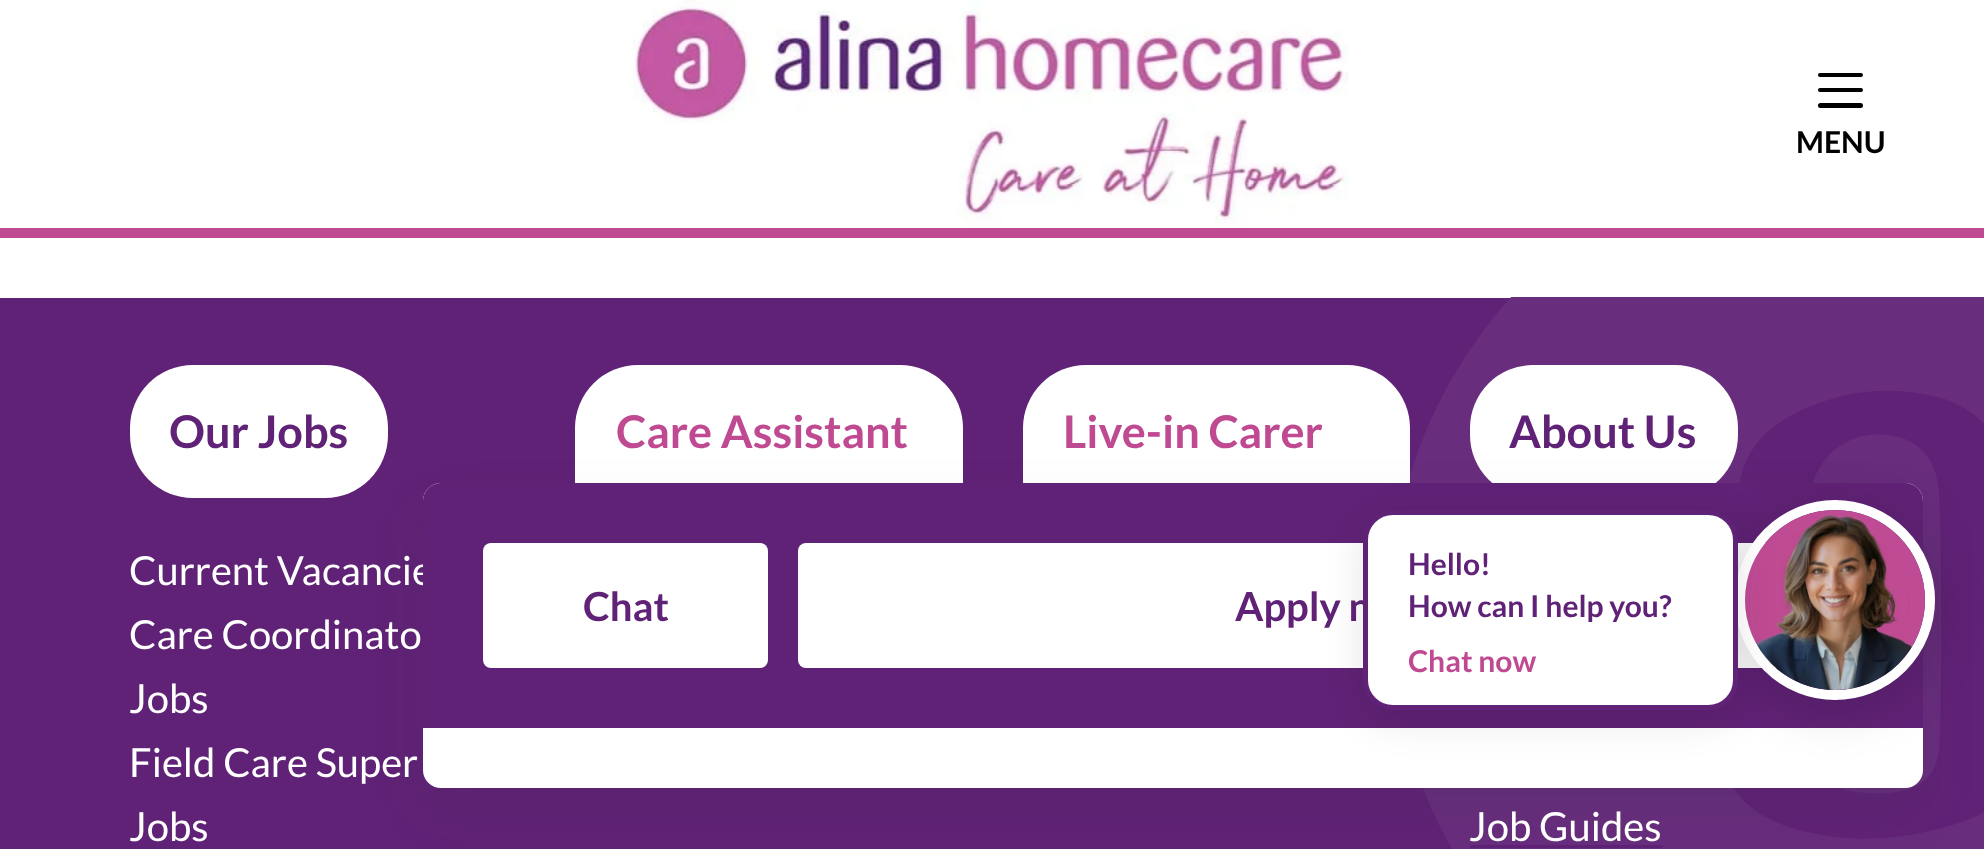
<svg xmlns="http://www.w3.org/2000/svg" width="1984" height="849">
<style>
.a{font:bold 30px Lato;fill:#000}
.b{font:bold 45px Lato;fill:#602276}
.c{font:40px Lato;fill:#fff}
.d{font:bold 45px Lato;fill:#bf4a92}
.e{font:bold 40px Lato;fill:#602276}
.f{font:bold 30px Lato;fill:#bf4a92}
.g{font:bold 30px Lato;fill:#602276}
</style>
<rect width="100%" height="100%" fill="#fff"/>
<image href="1.png" x="633" y="0" width="716" height="225"/>
<rect fill="#000" x="1818" y="73" width="45" height="4" rx="2"/>
<rect fill="#000" x="1818" y="88" width="45" height="4" rx="2"/>
<rect fill="#000" x="1818" y="103" width="45" height="5" rx="2.5"/>
<path fill="#bf4a92" d="M0 228h1984v10H0z"/>
<path fill="#602276" d="M0 298h1984v551H0z"/>
<image href="2.png" x="1410" y="297" width="574" height="552"/>
<rect fill="#fff" x="130" y="365" width="258" height="133" rx="63"/>
<rect fill="#fff" x="575" y="365" width="388" height="205" rx="63"/>
<rect fill="#fff" x="1023" y="365" width="387" height="205" rx="63"/>
<rect fill="#fff" x="1470" y="365" width="268" height="133" rx="63"/>
<path fill="#602276" d="M1470 845h193v3H1470z"/>
<rect fill="#29333d1a" filter="blur(25px)" x="423" y="508" width="1500" height="305" rx="18"/>
<rect fill="#fff" x="423" y="483" width="1500" height="305" rx="18"/>
<text class="a" x="1796" y="153">MENU</text>
<text class="b" x="169" y="448">Our Jobs</text>
<text class="c" x="129" y="585">Current Vacancie</text>
<text class="c" x="129" y="649">Care Coordinato</text>
<text class="c" x="129" y="713">Jobs</text>
<text class="c" x="129" y="777">Field Care Super</text>
<text class="c" x="129" y="841">Jobs</text>
<text class="d" x="616" y="448">Care Assistant</text>
<text class="d" x="1063" y="448">Live-in Carer</text>
<text class="b" x="1509" y="448">About Us</text>
<text class="c" x="1469" y="841">Job Guides</text>
<path fill="#602276" d="M441 483h1464c10 0 18 8 18 18v227h-1500v-227c0-10 8-18 18-18z"/>
<rect fill="#fff" x="483" y="543" width="285" height="125" rx="8"/>
<text class="e" x="583" y="621">Chat</text>
<rect fill="#fff" x="798" y="543" width="1065" height="125" rx="8"/>
<text class="e" x="1235" y="621">Apply n</text>
<rect fill="#00000026" filter="blur(25px)" x="1735" y="510" width="200" height="200" rx="100"/>
<circle fill="none" stroke="#fff" stroke-width="10" cx="1835" cy="600" r="95"/>
<image href="3.png" x="1745" y="510" width="180" height="180"/>
<rect fill="#0000001a" filter="blur(19px)" x="1363" y="520" width="375" height="200" rx="30"/>
<rect fill="#fff" stroke="#602276" stroke-width="5" x="1365.5" y="512.5" width="370" height="195" rx="27.5"/>
<text class="f" x="1408" y="672">Chat now</text>
<text class="g" x="1408" y="617">How can I help you?</text>
<text class="g" x="1408" y="575">Hello!</text>
</svg>
